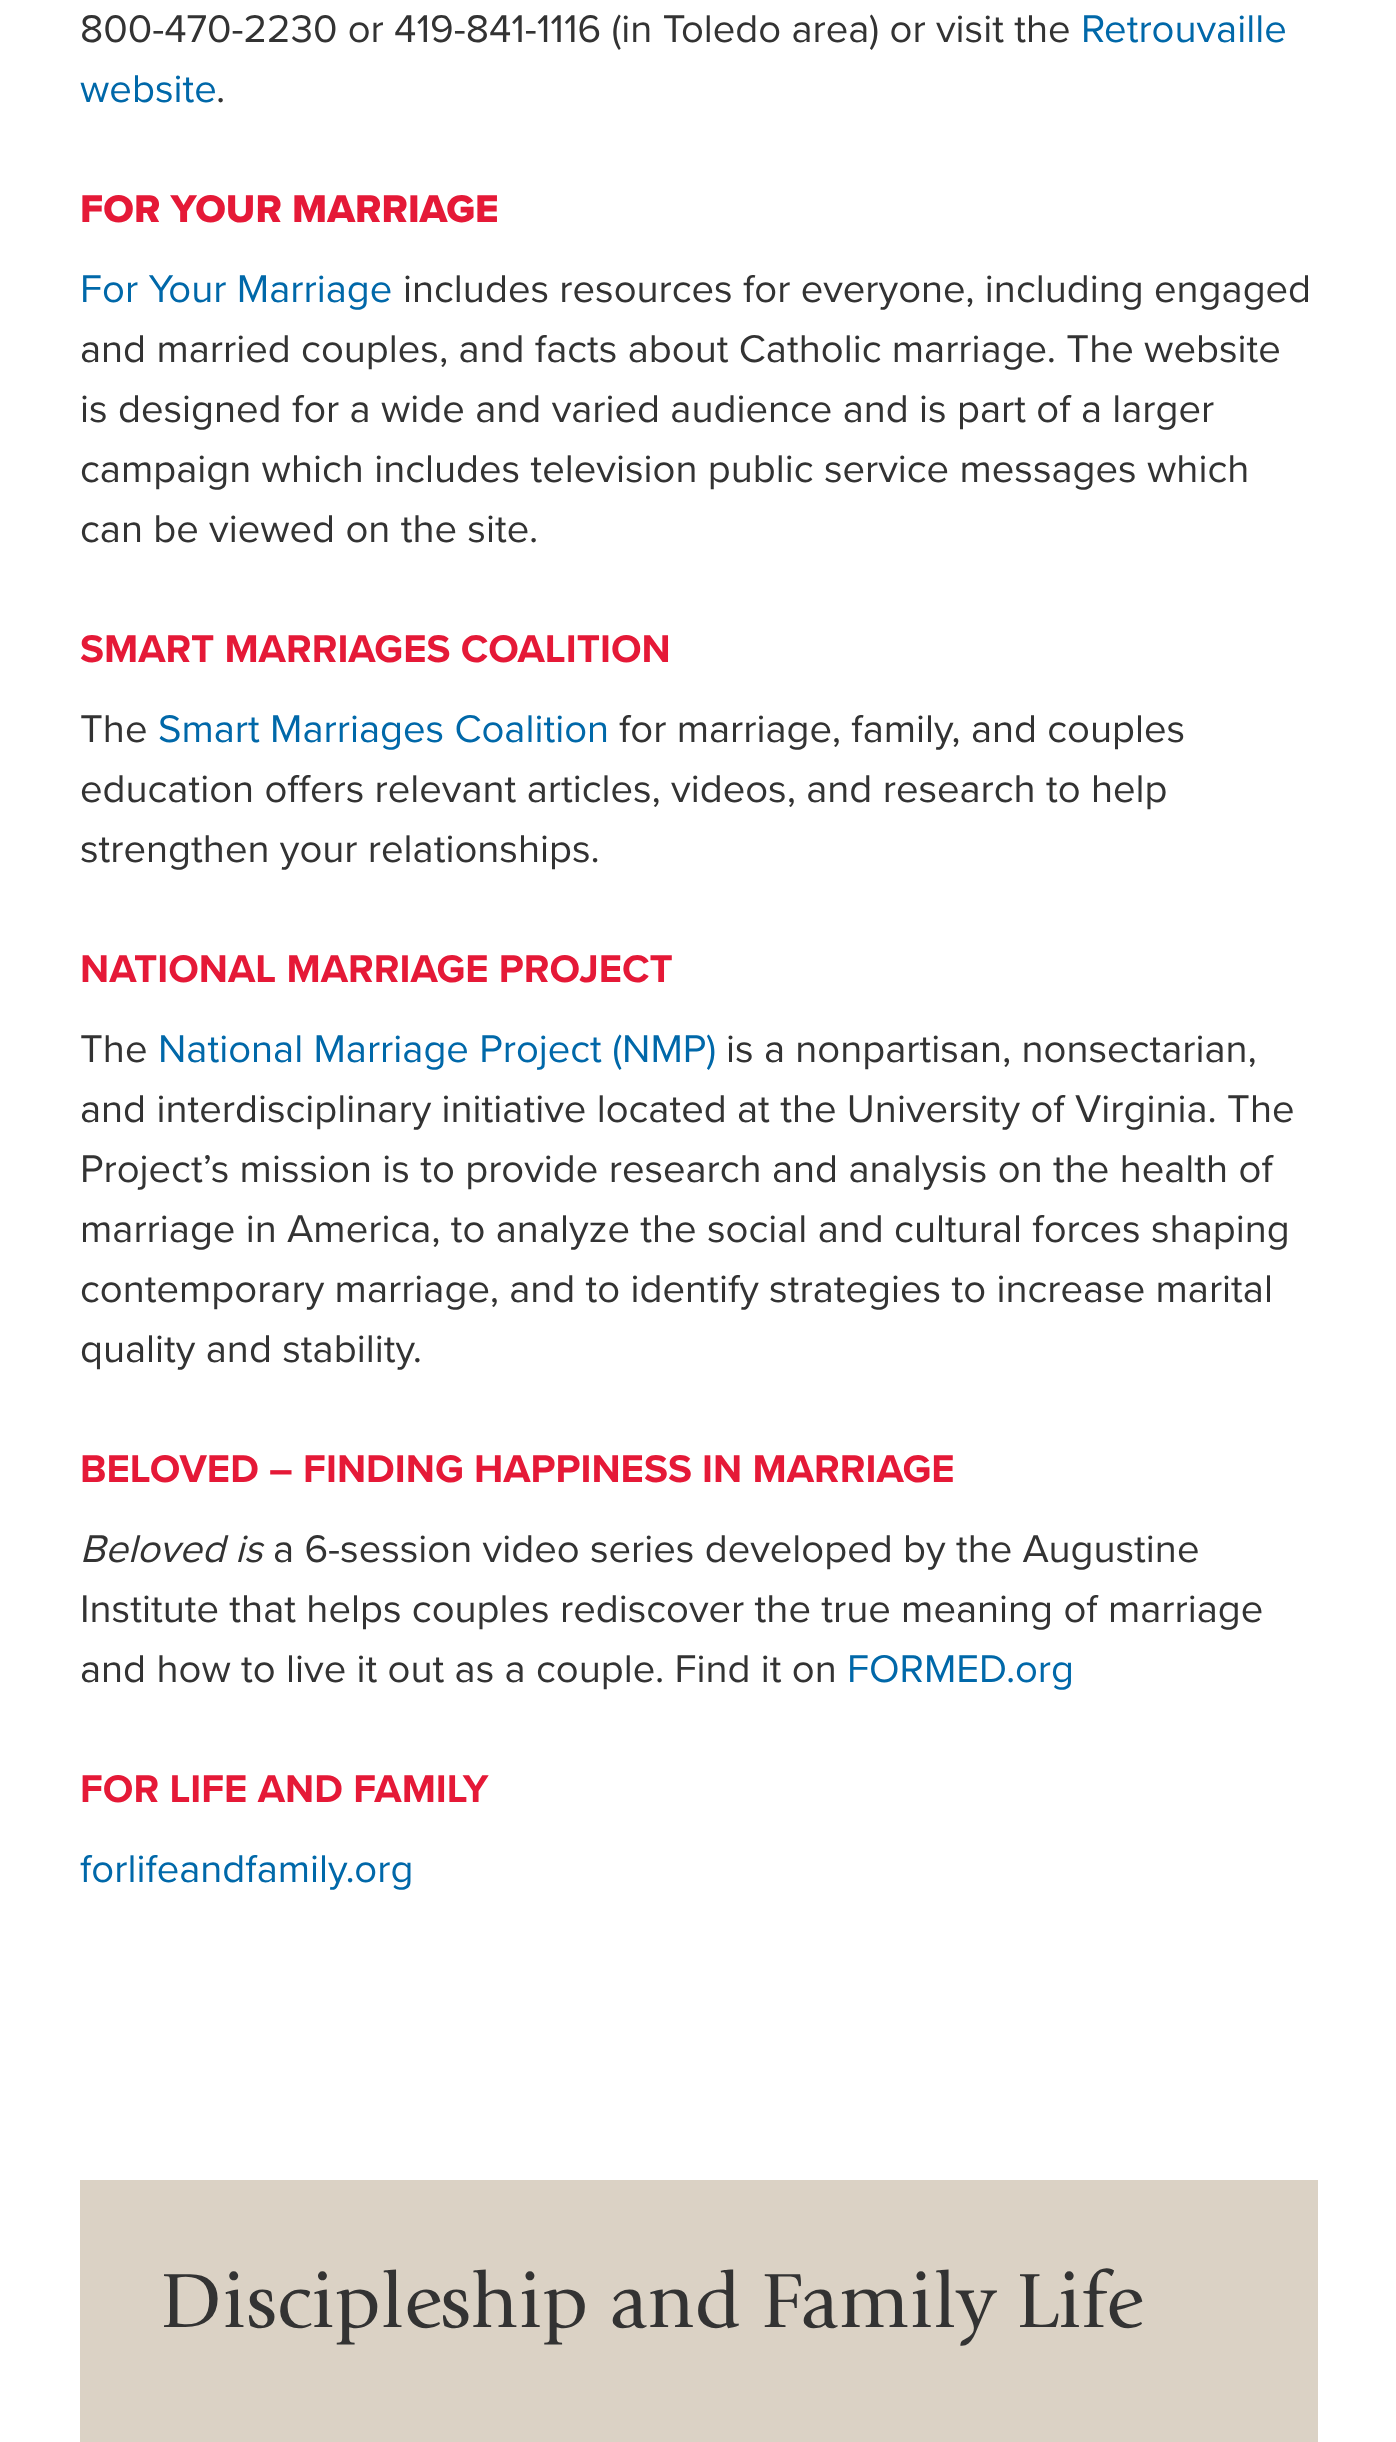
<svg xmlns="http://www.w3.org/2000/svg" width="1396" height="2442">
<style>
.a{font:40px Proxima Nova;fill:#333}
.b{font:40px Proxima Nova;fill:#0068a9}
.c{font:800 40px Proxima Nova;fill:#e51937}
.d{font:bold 40px Proxima Nova;fill:#e51937}
.e{font:italic 40px Proxima Nova;fill:#333}
.f{font:80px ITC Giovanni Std;fill:#333}
</style>
<rect width="100%" height="100%" fill="#fff"/>
<path fill="#dbd2c5" d="M80 2180h1238v262H80z"/>
<text class="a" x="80" y="42">800-470-2230 or 419-841-1116 (in Toledo area) or visit the</text>
<text class="b" x="1081" y="42">Retrouvaille</text>
<text class="b" x="80" y="102">website</text>
<text class="a" x="216" y="102">.</text>
<text class="c" x="80" y="222">FOR YOUR MARRIAGE</text>
<text class="b" x="80" y="302">For Your Marriage</text>
<text class="a" x="403" y="302">includes resources for everyone, including engaged</text>
<text class="a" x="80" y="362">and married couples, and facts about Catholic marriage. The website</text>
<text class="a" x="80" y="422">is designed for a wide and varied audience and is part of a larger</text>
<text class="a" x="80" y="482">campaign which includes television public service messages which</text>
<text class="a" x="80" y="542">can be viewed on the site.</text>
<text class="d" x="80" y="662">SMART MARRIAGES COALITION</text>
<text class="a" x="80" y="742">The</text>
<text class="b" x="158" y="742">Smart Marriages Coalition</text>
<text class="a" x="619" y="742">for marriage, family, and couples</text>
<text class="a" x="80" y="802">education offers relevant articles, videos, and research to help</text>
<text class="a" x="80" y="862">strengthen your relationships.</text>
<text class="d" x="80" y="982">NATIONAL MARRIAGE PROJECT</text>
<text class="a" x="80" y="1062">The</text>
<text class="b" x="158" y="1062">National Marriage Project (NMP)</text>
<text class="a" x="726" y="1062">is a nonpartisan, nonsectarian,</text>
<text class="a" x="80" y="1122">and interdisciplinary initiative located at the University of Virginia. The</text>
<text class="a" x="80" y="1182">Project’s mission is to provide research and analysis on the health of</text>
<text class="a" x="80" y="1242">marriage in America, to analyze the social and cultural forces shaping</text>
<text class="a" x="80" y="1302">contemporary marriage, and to identify strategies to increase marital</text>
<text class="a" x="80" y="1362">quality and stability.</text>
<text class="d" x="80" y="1482">BELOVED – FINDING HAPPINESS IN MARRIAGE</text>
<text class="e" x="80" y="1562">Beloved is</text>
<text class="a" x="273" y="1562">a 6-session video series developed by the Augustine</text>
<text class="a" x="80" y="1622">Institute that helps couples rediscover the true meaning of marriage</text>
<text class="a" x="80" y="1682">and how to live it out as a couple. Find it on</text>
<text class="b" x="847" y="1682">FORMED.org</text>
<text class="d" x="80" y="1802">FOR LIFE AND FAMILY</text>
<text class="b" x="80" y="1882">forlifeandfamily.org</text>
<text class="f" x="160" y="2327">Discipleship and Family Life</text>
</svg>
